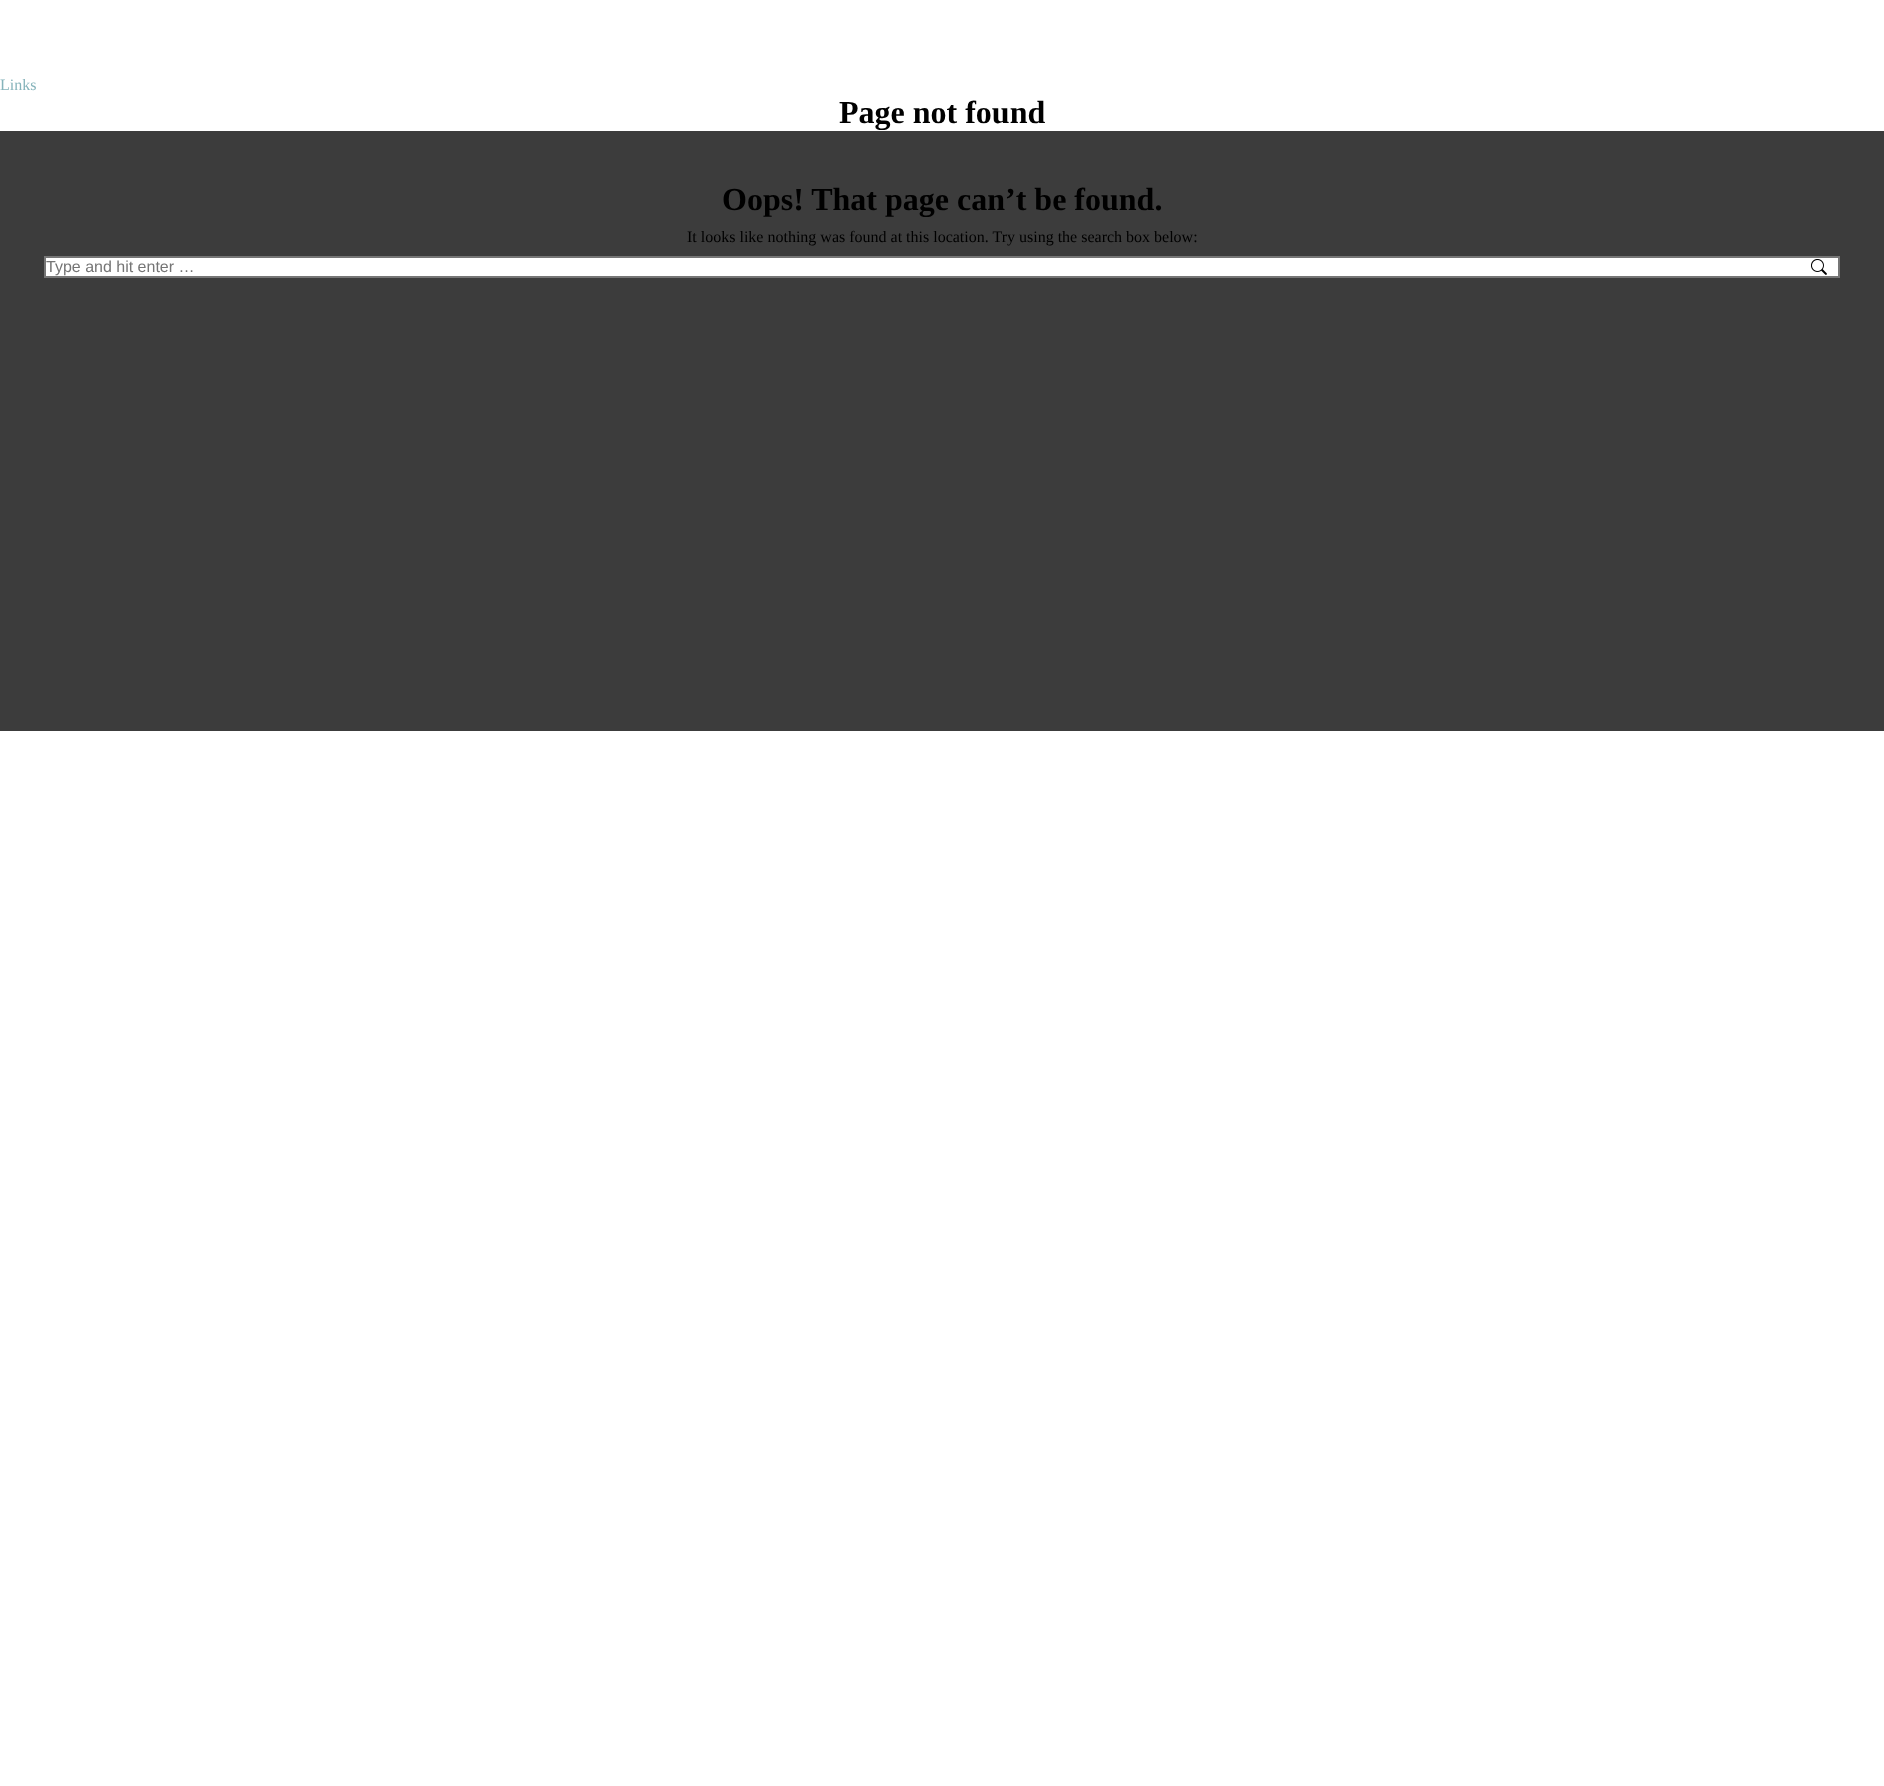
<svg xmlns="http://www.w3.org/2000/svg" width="1884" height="1786">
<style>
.a{font:16px Liberation Serif;fill:#86b4bb}
.b{font:bold 32px Liberation Serif;fill:#000}
.c{font:16px Liberation Serif;fill:#000}
.d{font:16px Liberation Sans;fill:#757575}
</style>
<rect width="100%" height="100%" fill="#fff"/>
<path fill="#3c3c3c" d="M0 131h1884v600H0z"/>
<path fill="#fff" stroke="#767676" stroke-width="2" d="M45 257h1794v20H45z"/>
<image href="1.png" x="1811" y="259" width="16" height="16"/>
<text class="a" x="0" y="90">Links</text>
<text class="b" x="839" y="123">Page not found</text>
<text class="b" x="722" y="210">Oops! That page can’t be found.</text>
<text class="c" x="687" y="242">It looks like nothing was found at this location. Try using the search box below:</text>
<text class="d" x="46" y="272">Type and hit enter …</text>
</svg>
